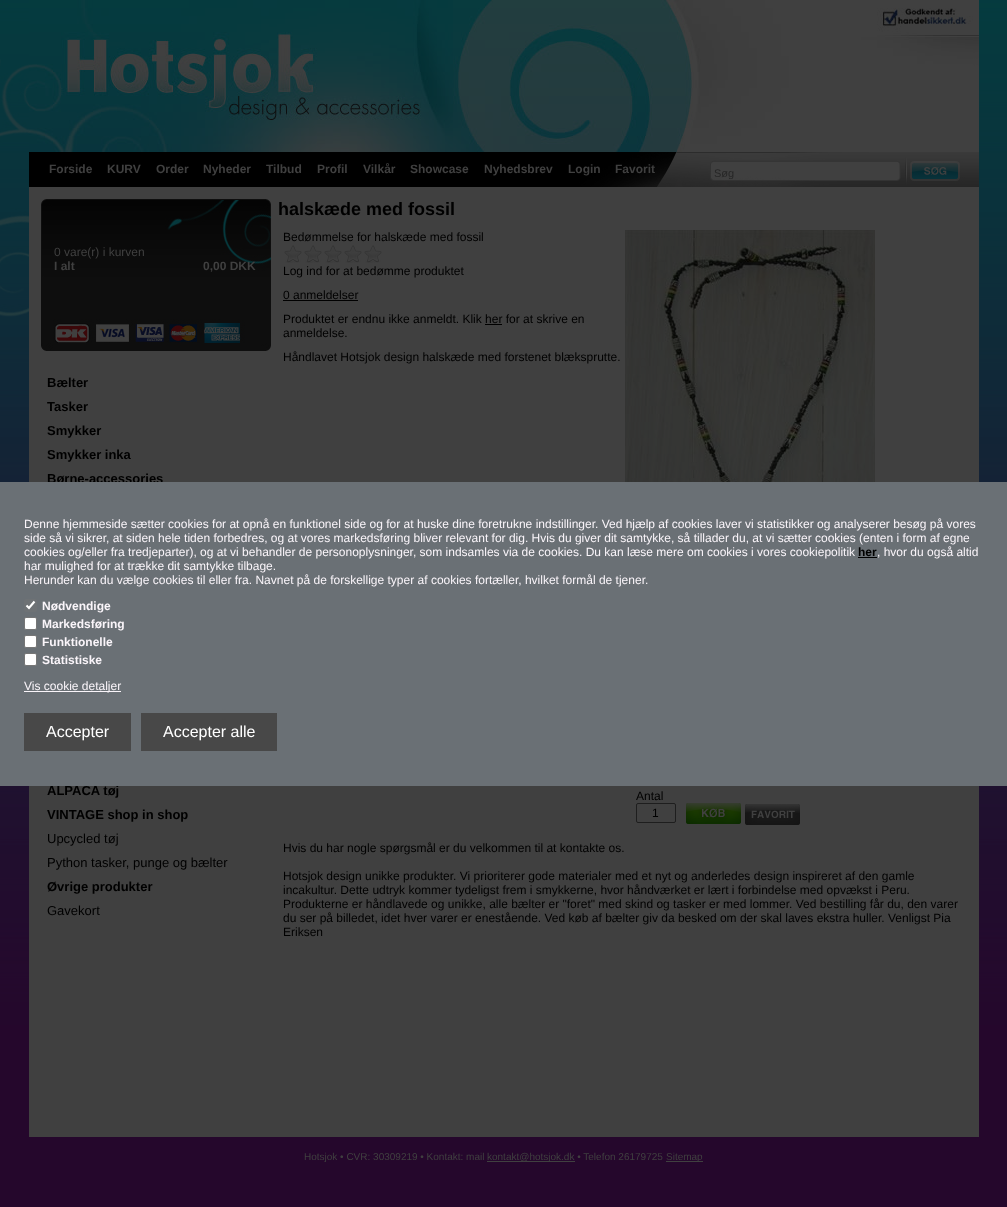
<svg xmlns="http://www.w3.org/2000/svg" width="1007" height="1207">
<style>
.a{font:bold 12px Liberation Sans;fill:#404040}
.b{font:11px Liberation Sans;fill:#262626}
.c{font:12px Liberation Sans;fill:#404040}
.d{font:bold 13px Liberation Sans;fill:#000}
.e{font:13px Liberation Sans;fill:#000}
.f{font:bold 18px Liberation Sans;fill:#000}
.g{font:12px Liberation Sans;fill:#000}
.h{font:10px Liberation Sans;fill:#404040}
.i{font:12px Liberation Sans;fill:#faf5fa}
.j{font:bold 12px Liberation Sans;fill:#000}
.k{font:bold 12px Liberation Sans;fill:#faf5fa}
.l{font:16px Liberation Sans;fill:#fff}
</style>
<defs>
<clipPath id="clip1"><path d="M714 167h180v12H714z"/></clipPath>
</defs>
<rect width="100%" height="100%" fill="#25072c"/>
<image href="1.png" x="0" y="0" width="1007" height="1025"/>
<image href="2.png" x="0" y="59" width="29" height="258"/>
<image href="3.png" x="973" y="0" width="6" height="152"/>
<image href="4.png" x="29" y="0" width="944" height="152"/>
<path fill="#404040" d="M29 187h950v950H29z"/>
<image href="5.png" x="29" y="152" width="950" height="35"/>
<image href="6.png" x="41" y="199" width="230" height="152"/>
<image href="7.png" x="284" y="245" width="18" height="18"/>
<image href="7.png" x="304" y="245" width="18" height="18"/>
<image href="7.png" x="324" y="245" width="18" height="18"/>
<image href="7.png" x="344" y="245" width="18" height="18"/>
<image href="7.png" x="364" y="245" width="18" height="18"/>
<path fill="#000" d="M283 300h75v1H283z"/>
<path fill="#000" d="M485 324h17v1H485z"/>
<image href="8.png" x="625" y="230" width="250" height="252"/>
<rect fill="none" stroke="#1e1e1e" x="636.5" y="803.5" width="39" height="19" rx="1.5"/>
<image href="9.png" x="686" y="803" width="55" height="21"/>
<image href="10.png" x="745" y="804" width="55" height="21"/>
<path fill="#404040" d="M487 1161h88v1H487z"/>
<path fill="#404040" d="M666 1161h37v1H666z"/>
<text class="a" x="49" y="173">Forside</text>
<text class="a" x="107" y="173">KURV</text>
<text class="a" x="156" y="173">Order</text>
<text class="a" x="203" y="173">Nyheder</text>
<text class="a" x="266" y="173">Tilbud</text>
<text class="a" x="317" y="173">Profil</text>
<text class="a" x="363" y="173">Vilkår</text>
<text class="a" x="410" y="173">Showcase</text>
<text class="a" x="484" y="173">Nyhedsbrev</text>
<text class="a" x="568" y="173">Login</text>
<text class="a" x="615" y="173">Favorit</text>
<g clip-path="url(#clip1)">
<text class="b" x="714" y="177">Søg</text>
</g>
<text class="c" x="54" y="256">0 vare(r) i kurven</text>
<text class="a" x="54" y="270">I alt</text>
<text class="a" x="203" y="270">0,00 DKK</text>
<text class="d" x="47" y="387">Bælter</text>
<text class="d" x="47" y="411">Tasker</text>
<text class="d" x="47" y="435">Smykker</text>
<text class="d" x="47" y="459">Smykker inka</text>
<text class="d" x="47" y="483">Børne-accessories</text>
<text class="d" x="47" y="795">ALPACA tøj</text>
<text class="d" x="47" y="819">VINTAGE shop in shop</text>
<text class="e" x="47" y="843">Upcycled tøj</text>
<text class="e" x="47" y="867">Python tasker, punge og bælter</text>
<text class="d" x="47" y="891">Øvrige produkter</text>
<text class="e" x="47" y="915">Gavekort</text>
<text class="f" x="278" y="215">halskæde med fossil</text>
<text class="g" x="283" y="241">Bedømmelse for halskæde med fossil</text>
<text class="g" x="283" y="275">Log ind for at bedømme produktet</text>
<text class="g" x="283" y="299">0 anmeldelser</text>
<text class="g" x="283" y="323">Produktet er endnu ikke anmeldt. Klik her for at skrive en</text>
<text class="g" x="283" y="337">anmeldelse.</text>
<text class="g" x="283" y="361">Håndlavet Hotsjok design halskæde med forstenet blæksprutte.</text>
<text class="g" x="636" y="800">Antal</text>
<text class="g" x="652" y="817">1</text>
<text class="g" x="283" y="852">Hvis du har nogle spørgsmål er du velkommen til at kontakte os.</text>
<text class="g" x="283" y="880">Hotsjok design unikke produkter. Vi prioriterer gode materialer med et nyt og anderledes design inspireret af den gamle</text>
<text class="g" x="283" y="894">incakultur. Dette udtryk kommer tydeligst frem i smykkerne, hvor håndværket er lært i forbindelse med opvækst i Peru.</text>
<text class="g" x="283" y="908">Produkterne er håndlavede og unikke, alle bælter er "foret" med skind og tasker er med lommer. Ved bestilling får du, den varer</text>
<text class="g" x="283" y="922">du ser på billedet, idet hver varer er enestående. Ved køb af bælter giv da besked om der skal laves ekstra huller. Venligst Pia</text>
<text class="g" x="283" y="936">Eriksen</text>
<text class="h" x="304" y="1160">Hotsjok • CVR: 30309219 • Kontakt: mail</text>
<text class="h" x="487" y="1160">kontakt@hotsjok.dk • Telefon 26179725</text>
<text class="h" x="666" y="1160">Sitemap</text>
<path fill="#6a7075" d="M0 482h1007v304H0z"/>
<text class="i" x="24" y="528">Denne hjemmeside sætter cookies for at opnå en funktionel side og for at huske dine foretrukne indstillinger. Ved hjælp af cookies laver vi statistikker og analyserer besøg på vores</text>
<text class="i" x="24" y="542">side så vi sikrer, at siden hele tiden forbedres, og at vores markedsføring bliver relevant for dig. Hvis du giver dit samtykke, så tillader du, at vi sætter cookies (enten i form af egne</text>
<text class="i" x="24" y="556">cookies og/eller fra tredjeparter), og at vi behandler de personoplysninger, som indsamles via de cookies. Du kan læse mere om cookies i vores cookiepolitik</text>
<text class="j" x="858" y="556">her</text>
<path fill="#000" d="M858 557h19v1H858z"/>
<text class="i" x="877" y="556">, hvor du også altid</text>
<text class="i" x="24" y="570">har mulighed for at trække dit samtykke tilbage.</text>
<text class="i" x="24" y="584">Herunder kan du vælge cookies til eller fra. Navnet på de forskellige typer af cookies fortæller, hvilket formål de tjener.</text>
<rect fill="#6e7275" x="24" y="599" width="13" height="13" rx="2"/>
<path fill="none" stroke="#fff" stroke-width="2.1" d="M26.5 605.5l2.5 2.5l5.5-6.5"/>
<text class="k" x="42" y="610">Nødvendige</text>
<rect fill="#fff" stroke="#767676" x="24.5" y="617.5" width="12" height="12" rx="1.5"/>
<text class="k" x="42" y="628">Markedsføring</text>
<rect fill="#fff" stroke="#767676" x="24.5" y="635.5" width="12" height="12" rx="1.5"/>
<text class="k" x="42" y="646">Funktionelle</text>
<rect fill="#fff" stroke="#767676" x="24.5" y="653.5" width="12" height="12" rx="1.5"/>
<text class="k" x="42" y="664">Statistiske</text>
<path fill="#faf5fa" d="M24 691h97v1H24z"/>
<text class="i" x="24" y="690">Vis cookie detaljer</text>
<path fill="#484848" d="M24 713h107v38H24z"/>
<text class="l" x="46" y="737">Accepter</text>
<path fill="#484848" d="M141 713h136v38H141z"/>
<text class="l" x="163" y="737">Accepter alle</text>
</svg>
